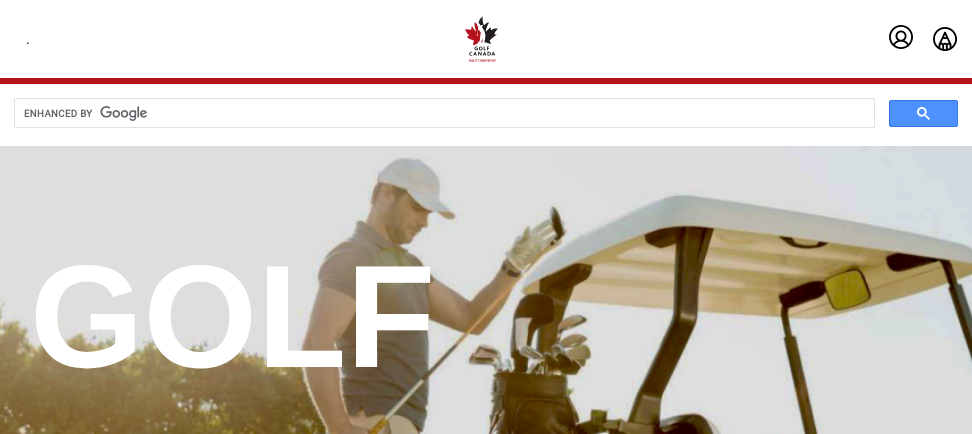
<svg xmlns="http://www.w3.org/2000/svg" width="972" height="434">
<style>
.a{font:13px Liberation Sans;fill:#000}
.b{font:bold 146px Liberation Sans;fill:#fff}
</style>
<rect width="100%" height="100%" fill="#fff"/>
<image href="1.png" x="465" y="16" width="33" height="46"/>
<image href="2.png" x="889" y="25" width="24" height="24"/>
<image href="3.png" x="933" y="27" width="24" height="24"/>
<path fill="#b5121b" d="M0 78h972v6H0z"/>
<path fill="none" stroke="#dfe1e5" d="M14.5 98.5h860v29H14.5z"/>
<image href="4.png" x="24" y="106" width="123" height="15"/>
<rect fill="#4d90fe" stroke="#3079ed" x="889.5" y="100.5" width="68" height="26" rx="1.5"/>
<image href="5.png" x="917" y="107" width="13" height="13"/>
<image href="6.png" x="0" y="146" width="972" height="288"/>
<text class="a" x="26" y="44">.</text>
<text class="b" x="30" y="367">GOLF</text>
</svg>
